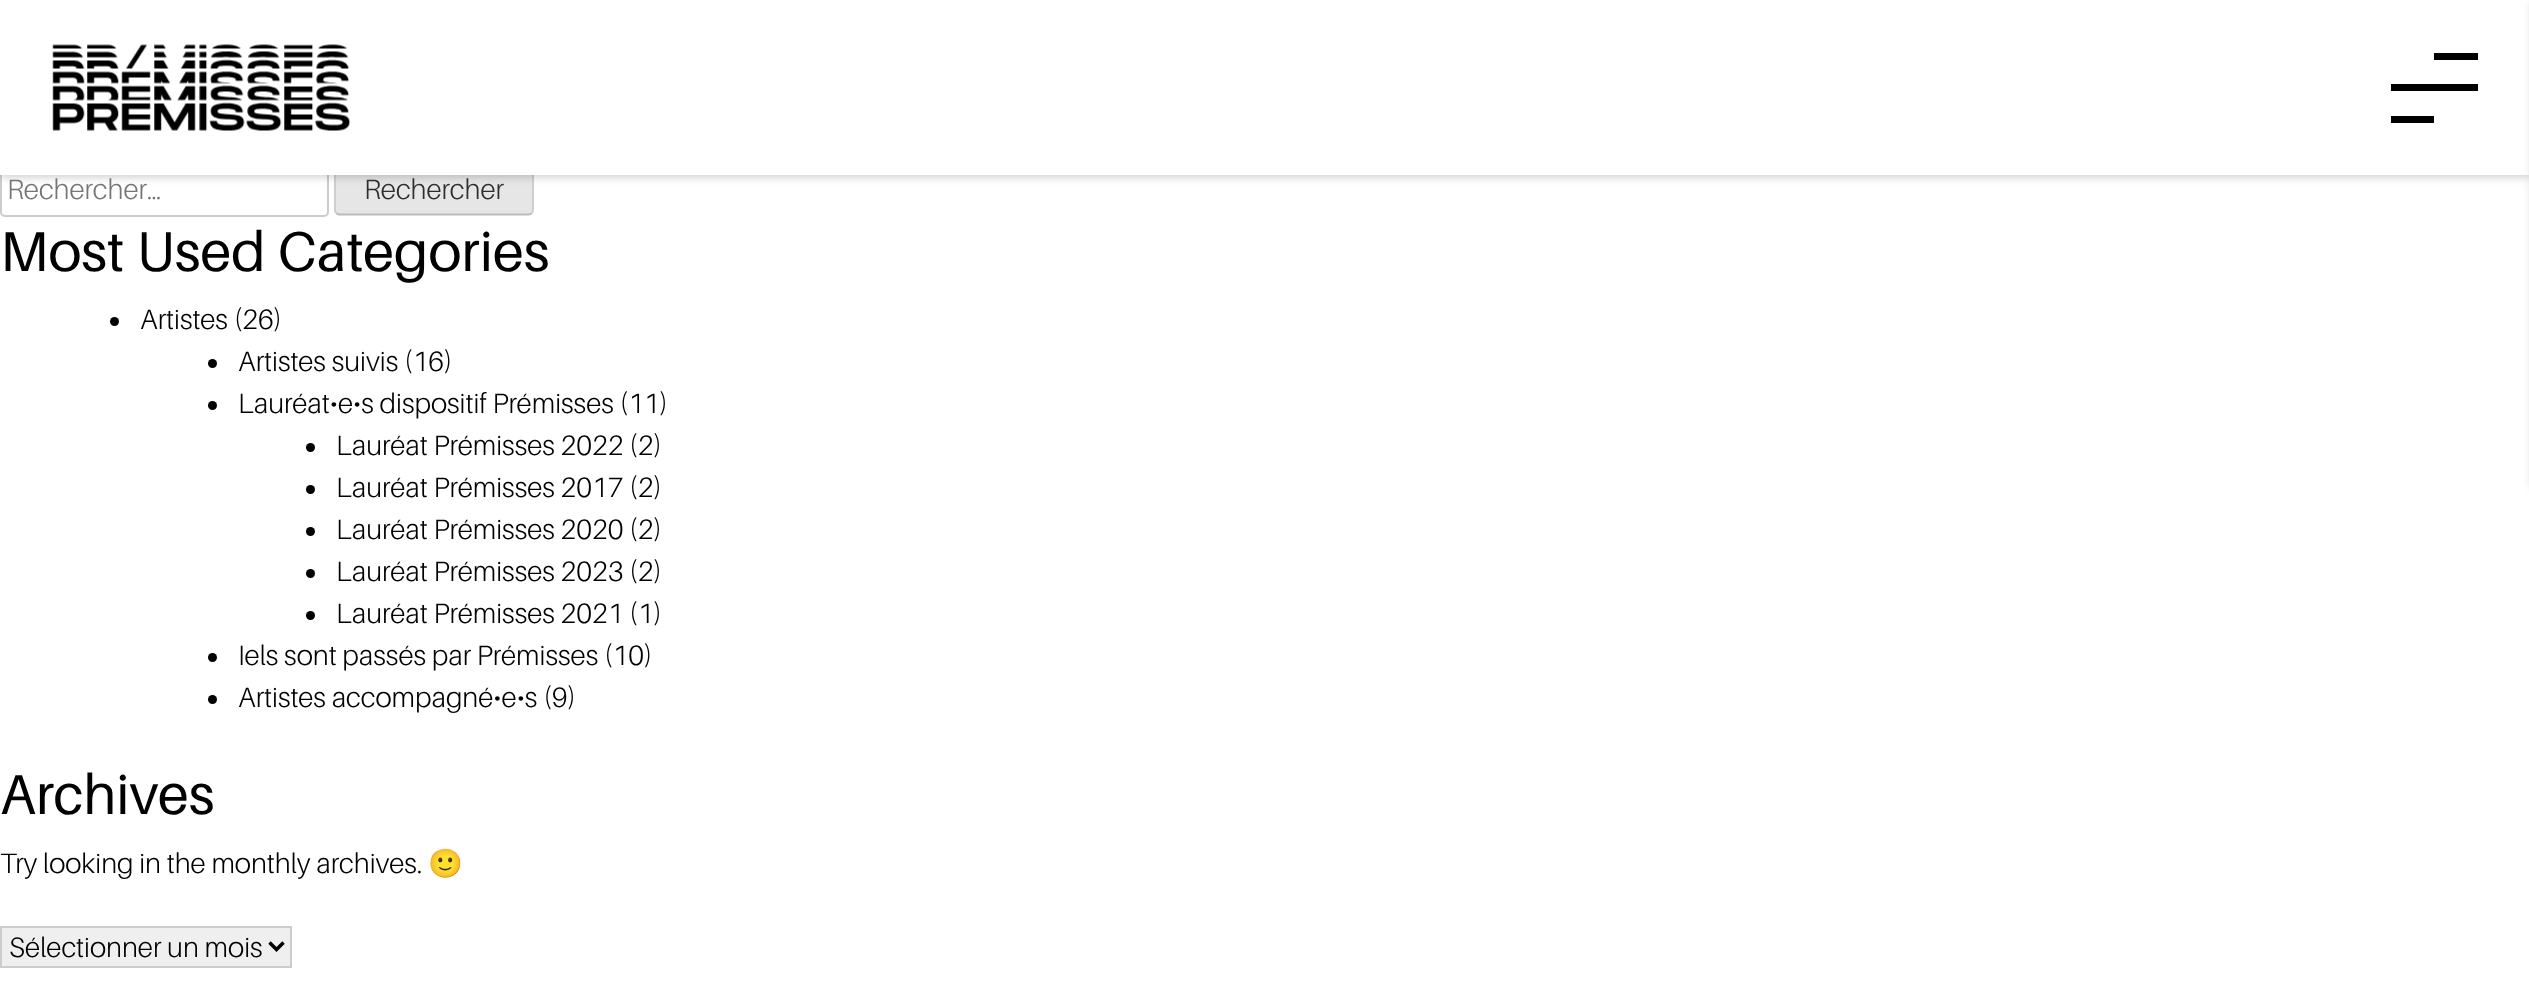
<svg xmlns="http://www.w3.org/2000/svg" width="2529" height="991">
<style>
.a{font:300 28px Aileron;fill:#757575}
.b{font:300 28px Aileron;fill:#2e2e2e}
.c{font:56px Aileron;fill:#000}
.d{font:300 28px Aileron;fill:#000}
.e{font:28px Noto Color Emoji;fill:#000}
</style>
<rect width="100%" height="100%" fill="#fff"/>
<rect fill="none" stroke="#ccc" stroke-width="2" x="1" y="162" width="327" height="54" rx="4"/>
<rect fill="#e6e6e6" x="334" y="156" width="200" height="59" rx="5"/>
<path fill="none" stroke="#bbb" stroke-width="1.8" d="M531.5 213c-.5 1-2 1.5-3 1.5h-189c-1 0-2.5-.5-3-1.5"/>
<path fill="none" stroke="#ccc" stroke-width="1.8" d="M336.5 213c-1-.5-1.5-2-1.5-3v-49c0-1 .5-2.5 1.5-3c.5-1 2-1.5 3-1.5h189c1 0 2.5 .5 3 1.5c1 .5 1.5 2 1.5 3v49c0 1-.5 2.5-1.5 3"/>
<path fill="#00000033" filter="blur(4.5px)" d="M0 2h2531v175H0z"/>
<path fill="#fff" d="M0 0h2529v175H0z"/>
<image href="1.png" x="52" y="44" width="299" height="87"/>
<path fill="#000" d="M2434 53h44v7H2434z"/>
<path fill="#000" d="M2391 84h87v7H2391z"/>
<path fill="#000" d="M2391 116h43v7H2391z"/>
<path fill="#00000033" filter="blur(4.5px)" d="M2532 2h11v485H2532z"/>
<circle fill="#000" cx="114.5" cy="321.5" r="4.5"/>
<circle fill="#000" cx="212.5" cy="363.5" r="4.5"/>
<circle fill="#000" cx="212.5" cy="405.5" r="4.5"/>
<circle fill="#000" cx="310.5" cy="447.5" r="4.5"/>
<circle fill="#000" cx="310.5" cy="489.5" r="4.5"/>
<circle fill="#000" cx="310.5" cy="531.5" r="4.5"/>
<circle fill="#000" cx="310.5" cy="573.5" r="4.5"/>
<circle fill="#000" cx="310.5" cy="615.5" r="4.5"/>
<circle fill="#000" cx="212.5" cy="657.5" r="4.5"/>
<circle fill="#000" cx="212.5" cy="699.5" r="4.5"/>
<path fill="#efefef" stroke="#ccc" stroke-width="2" d="M1 927h290v40H1z"/>
<path fill="none" stroke="#000" stroke-width="3.5" d="M269.5 942.5l7 7l7-7"/>
<text class="a" x="7" y="199">Rechercher…</text>
<text class="b" x="364" y="199">Rechercher</text>
<text class="c" x="0" y="271">Most Used Categories</text>
<text class="d" x="140" y="329">Artistes (26)</text>
<text class="d" x="238" y="371">Artistes suivis (16)</text>
<text class="d" x="238" y="413">Lauréat•e•s dispositif Prémisses (11)</text>
<text class="d" x="336" y="455">Lauréat Prémisses 2022 (2)</text>
<text class="d" x="336" y="497">Lauréat Prémisses 2017 (2)</text>
<text class="d" x="336" y="539">Lauréat Prémisses 2020 (2)</text>
<text class="d" x="336" y="581">Lauréat Prémisses 2023 (2)</text>
<text class="d" x="336" y="623">Lauréat Prémisses 2021 (1)</text>
<text class="d" x="238" y="665">Iels sont passés par Prémisses (10)</text>
<text class="d" x="238" y="707">Artistes accompagné•e•s (9)</text>
<text class="c" x="0" y="814">Archives</text>
<text class="d" x="0" y="873">Try looking in the monthly archives.</text>
<text class="e" x="428" y="873">🙂</text>
<text class="d" x="9" y="957">Sélectionner un mois</text>
</svg>
